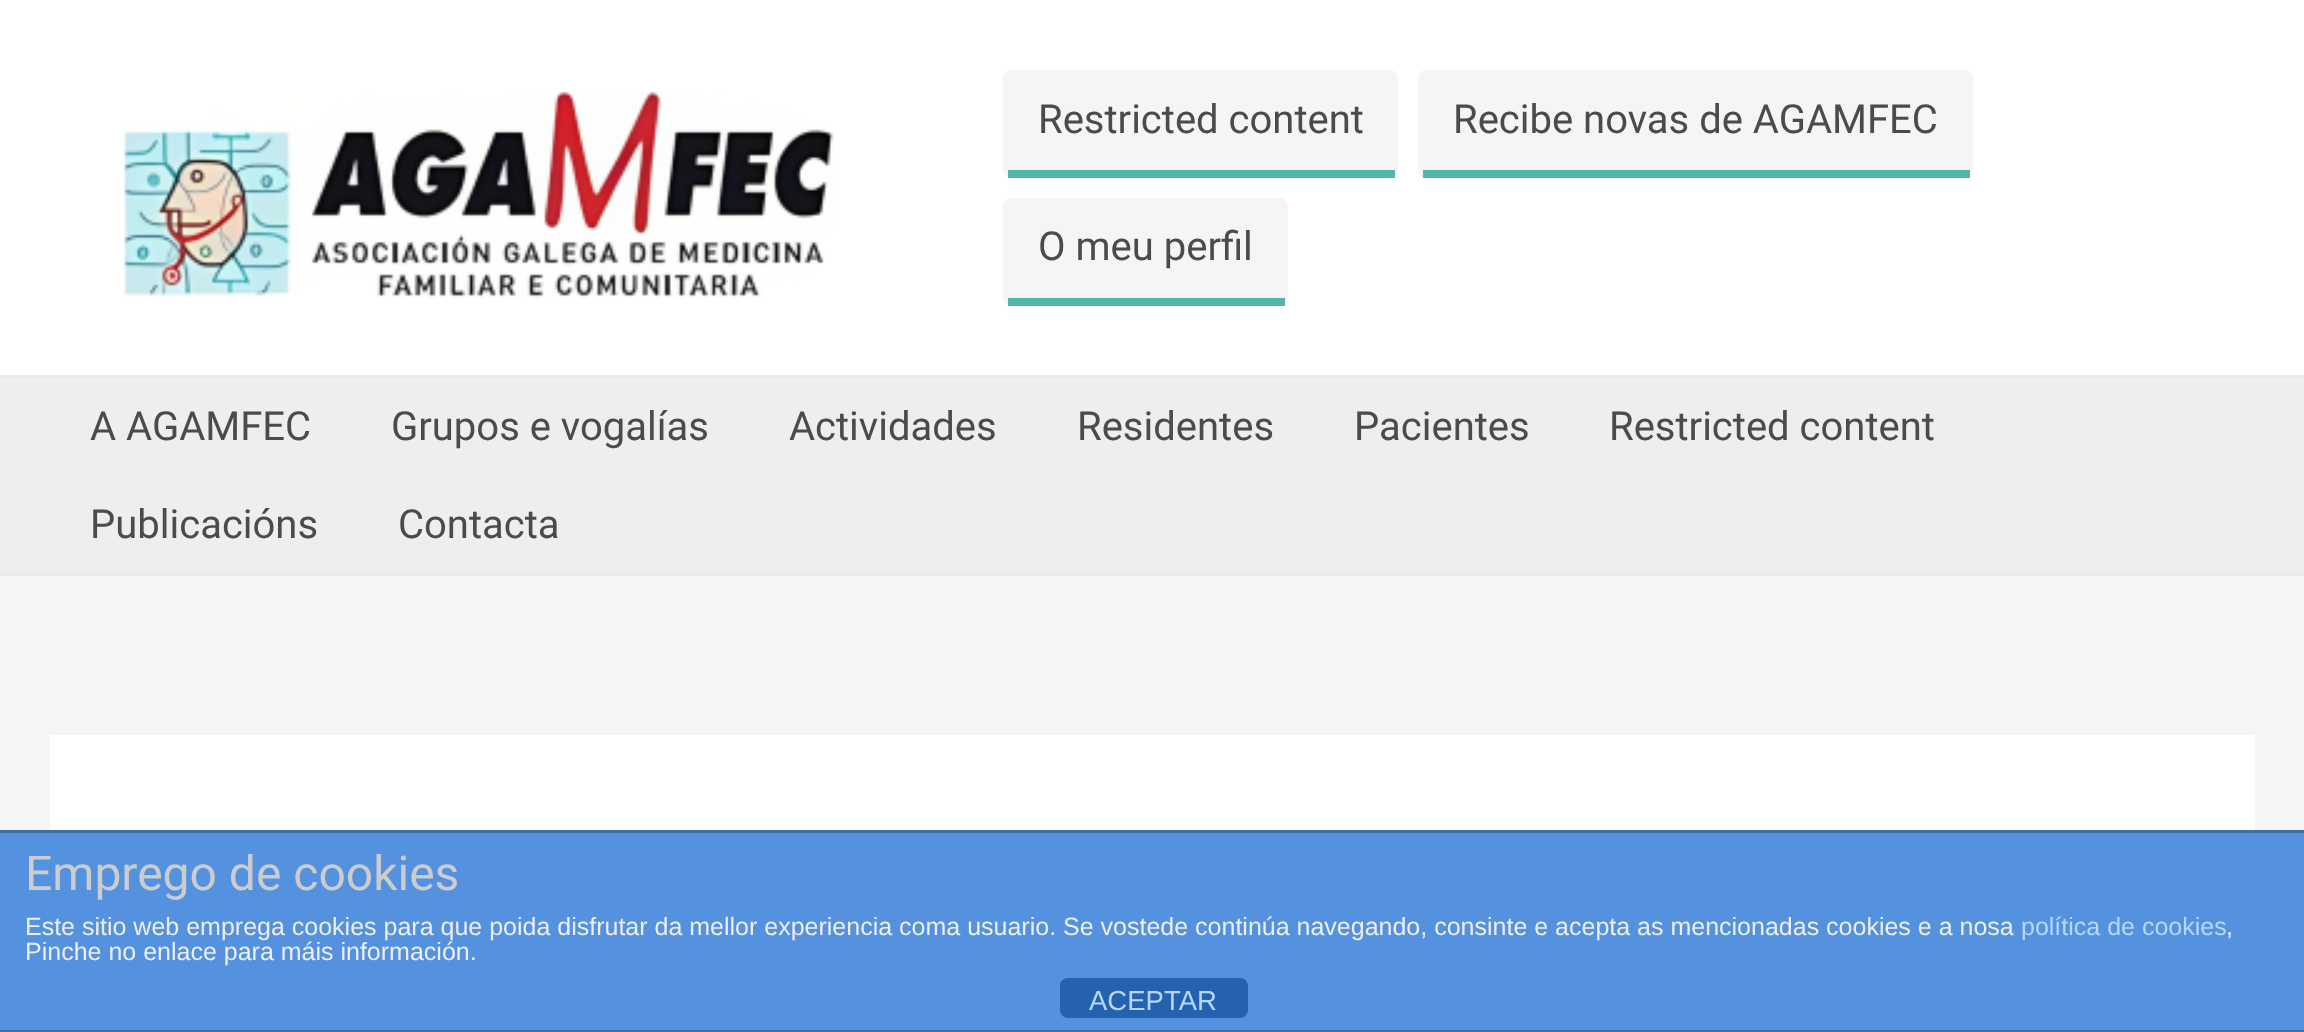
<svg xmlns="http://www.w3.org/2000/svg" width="2304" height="1032">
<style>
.a{font:40px Roboto;fill:#4b4b4b}
.b{font:48px Roboto;fill:#ccc}
.c{font:25px Liberation Sans;fill:#eee}
.d{font:25px Liberation Sans;fill:#b7d7ff}
.e{font:27.5px Liberation Sans;fill:#b7d7ff}
</style>
<rect width="100%" height="100%" fill="#f5f5f5"/>
<path fill="#fff" d="M0 0h2304v375H0z"/>
<path fill="#eaeaea" d="M0 375h2304v3H0z"/>
<image href="1.png" x="122" y="91" width="712" height="207"/>
<rect fill="#f5f5f5" x="1003" y="70" width="395" height="108" rx="8"/>
<path fill="#51b6ae" d="M1008 170h387v8H1008z"/>
<rect fill="#f5f5f5" x="1418" y="70" width="555" height="108" rx="8"/>
<path fill="#51b6ae" d="M1423 170h547v8H1423z"/>
<rect fill="#f5f5f5" x="1003" y="198" width="285" height="107" rx="8"/>
<path fill="#51b6ae" d="M1008 298h277v8H1008z"/>
<path fill="#eee" d="M0 378h2304v195H0z"/>
<path fill="#eaeaea" d="M0 573h2304v3H0z"/>
<path fill="#fff" d="M50 735h2205v95H50z"/>
<path fill="#5492e0" d="M0 833h2304v197H0z"/>
<path fill="#3f6da7" d="M0 830h2304v3H0z"/>
<path fill="#3f6da7" d="M0 1030h2304v2H0z"/>
<rect fill="#2462b0" x="1060" y="978" width="188" height="40" rx="8"/>
<text class="a" x="1038" y="133">Restricted content</text>
<text class="a" x="1453" y="133">Recibe novas de AGAMFEC</text>
<text class="a" x="1038" y="260">O meu perfil</text>
<text class="a" x="90" y="440">A AGAMFEC</text>
<text class="a" x="391" y="440">Grupos e vogalías</text>
<text class="a" x="789" y="440">Actividades</text>
<text class="a" x="1077" y="440">Residentes</text>
<text class="a" x="1354" y="440">Pacientes</text>
<text class="a" x="1609" y="440">Restricted content</text>
<text class="a" x="90" y="538">Publicacións</text>
<text class="a" x="398" y="538">Contacta</text>
<text class="b" x="25" y="890">Emprego de cookies</text>
<text class="c" x="25" y="935">Este sitio web emprega cookies para que poida disfrutar da mellor experiencia coma usuario. Se vostede continúa navegando, consinte e acepta as mencionadas cookies e a nosa</text>
<text class="d" x="2021" y="935">política de cookies</text>
<text class="c" x="2226" y="935">,</text>
<text class="c" x="25" y="960">Pinche no enlace para máis información.</text>
<text class="e" x="1089" y="1010">ACEPTAR</text>
</svg>
